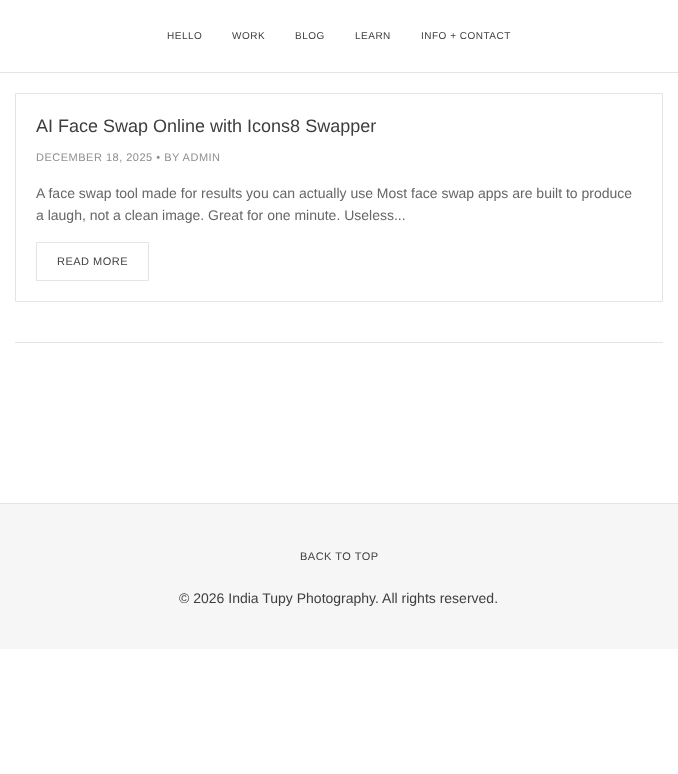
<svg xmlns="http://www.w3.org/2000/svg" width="678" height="774">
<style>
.a{font:10px Liberation Sans;letter-spacing:0.5px;fill:#3e3e3e}
.b{font:18px Liberation Sans;fill:#3e3e3e}
.c{font:11px Liberation Sans;letter-spacing:0.5px;fill:#8e8e8e}
.d{font:14px Liberation Sans;fill:#666}
.e{font:11px Liberation Sans;letter-spacing:0.5px;fill:#3e3e3e}
.f{font:14px Liberation Sans;fill:#3e3e3e}
</style>
<rect width="100%" height="100%" fill="#fff"/>
<path fill="#e4e4e4" d="M0 72h678v1H0z"/>
<path fill="none" stroke="#e4e4e4" d="M15.5 93.5h647v208H15.5z"/>
<path fill="none" stroke="#e4e4e4" d="M36.5 242.5h112v38H36.5z"/>
<path fill="#e4e4e4" d="M15 342h648v1H15z"/>
<path fill="#f6f6f6" d="M0 504h678v145H0z"/>
<path fill="#e4e4e4" d="M0 503h678v1H0z"/>
<text class="a" x="167" y="39">HELLO</text>
<text class="a" x="232" y="39">WORK</text>
<text class="a" x="295" y="39">BLOG</text>
<text class="a" x="355" y="39">LEARN</text>
<text class="a" x="421" y="39">INFO + CONTACT</text>
<text class="b" x="36" y="132">AI Face Swap Online with Icons8 Swapper</text>
<text class="c" x="36" y="161">DECEMBER 18, 2025 • BY ADMIN</text>
<text class="d" x="36" y="198">A face swap tool made for results you can actually use Most face swap apps are built to produce</text>
<text class="d" x="36" y="220">a laugh, not a clean image. Great for one minute. Useless...</text>
<text class="e" x="57" y="265">READ MORE</text>
<text class="e" x="300" y="560">BACK TO TOP</text>
<text class="f" x="179" y="603">© 2026 India Tupy Photography. All rights reserved.</text>
</svg>
